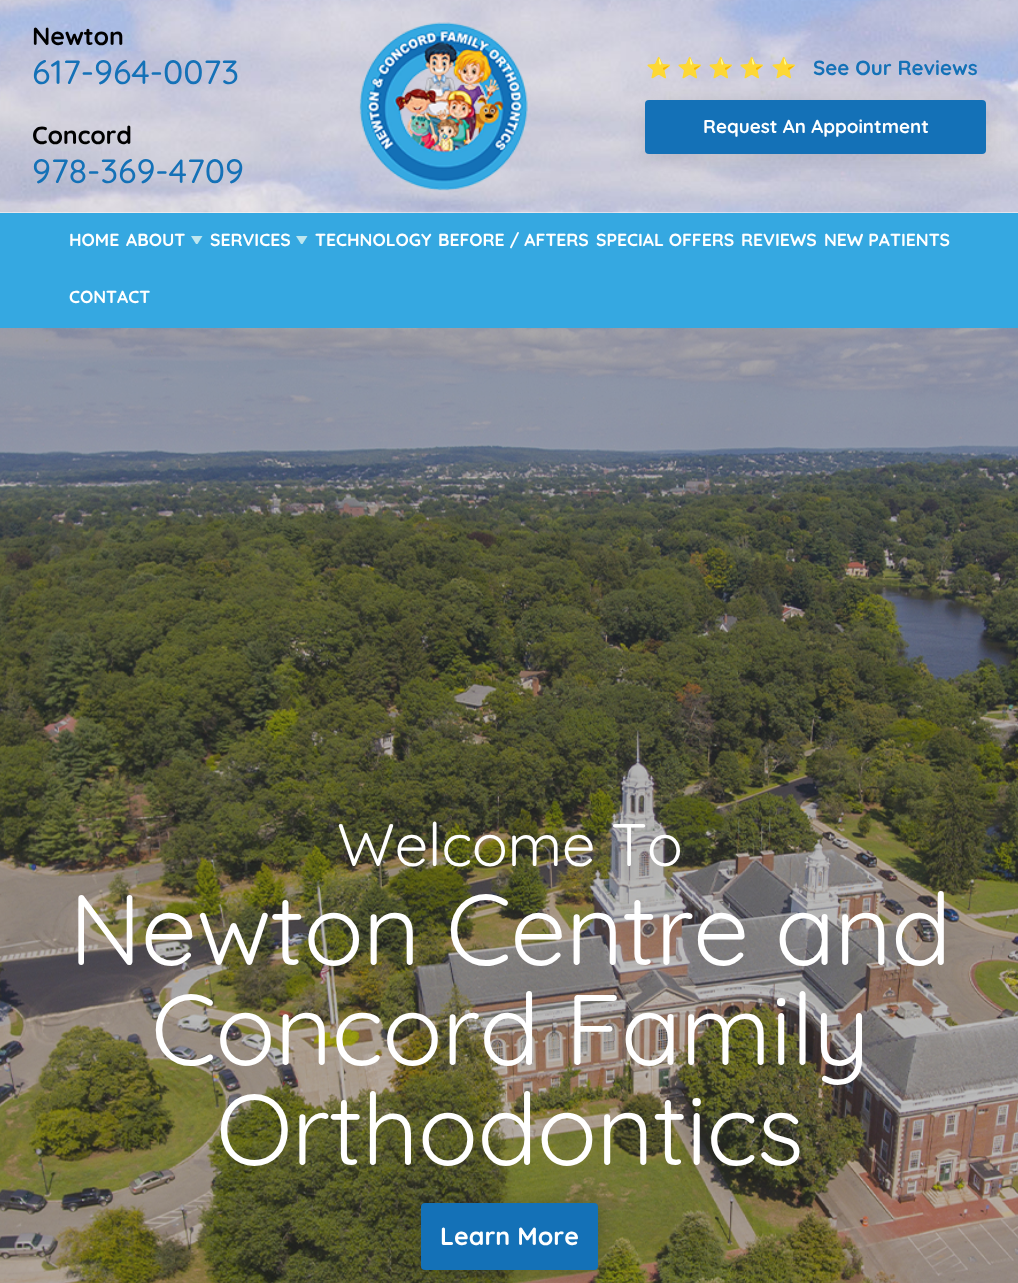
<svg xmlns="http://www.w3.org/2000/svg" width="1018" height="1283">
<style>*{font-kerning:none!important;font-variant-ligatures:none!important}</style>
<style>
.a{font:bold 25px Quicksand;letter-spacing:-0.25px;fill:#000}
.b{font:500 33.75px Quicksand;fill:#1471b7}
.c{font:20.5px Noto Color Emoji;fill:#1471b7}
.d{font:bold 20.5px Quicksand;fill:#1471b7}
.e{font:bold 18.75px Quicksand;fill:#fff}
.f{font:bold 17.5px Quicksand;fill:#fff}
.g{font:60px Quicksand;letter-spacing:-0.5px;fill:#fff}
.h{font:100px Quicksand;letter-spacing:-1px;fill:#fff}
.i{font:bold 25px Quicksand;fill:#fff}
</style>
<rect width="100%" height="100%" fill="#fff"/>
<image href="1.png" x="0" y="0" width="1018" height="213"/>
<image href="2.png" x="359" y="22" width="169" height="169"/>
<rect fill="#33333324" filter="blur(12.5px)" x="649" y="104" width="341" height="54" rx="4"/>
<rect fill="#1471b7" x="645" y="100" width="341" height="54" rx="4"/>
<path fill="#35a8e1" d="M0 213h1018v115H0z"/>
<path fill="#bde6ef" d="M191 236h11.5l-5 8h-1.5z"/>
<path fill="#bde6ef" d="M296 236h11.5l-5 8h-1.5z"/>
<image href="3.png" x="0" y="328" width="1018" height="955"/>
<rect fill="#22222247" filter="blur(12.5px)" x="424" y="1205" width="176" height="68" rx="4"/>
<rect fill="#1471b7" x="421" y="1203" width="177" height="67" rx="4"/>
<text class="a" x="32" y="45">Newton</text>
<text class="b" x="32" y="84">617-964-0073</text>
<text class="a" x="32" y="144">Concord</text>
<text class="b" x="32" y="183">978-369-4709</text>
<text class="c" x="646" y="75">⭐</text>
<text class="c" x="677" y="75">⭐</text>
<text class="c" x="708" y="75">⭐</text>
<text class="c" x="739" y="75">⭐</text>
<text class="c" x="771" y="75">⭐</text>
<text class="d" x="813" y="75">See Our Reviews</text>
<text class="e" x="703" y="133">Request An Appointment</text>
<text class="f" x="69" y="246">HOME</text>
<text class="f" x="126" y="246">ABOUT</text>
<text class="f" x="210" y="246">SERVICES</text>
<text class="f" x="315" y="246">TECHNOLOGY</text>
<text class="f" x="438" y="246">BEFORE / AFTERS</text>
<text class="f" x="596" y="246">SPECIAL OFFERS</text>
<text class="f" x="741" y="246">REVIEWS</text>
<text class="f" x="824" y="246">NEW PATIENTS</text>
<text class="f" x="69" y="303">CONTACT</text>
<text class="g" x="337" y="866">Welcome To</text>
<text class="h" x="69" y="965">Newton Centre and</text>
<text class="h" x="151" y="1065">Concord Family</text>
<text class="h" x="216" y="1165">Orthodontics</text>
<text class="i" x="440" y="1245">Learn More</text>
</svg>
